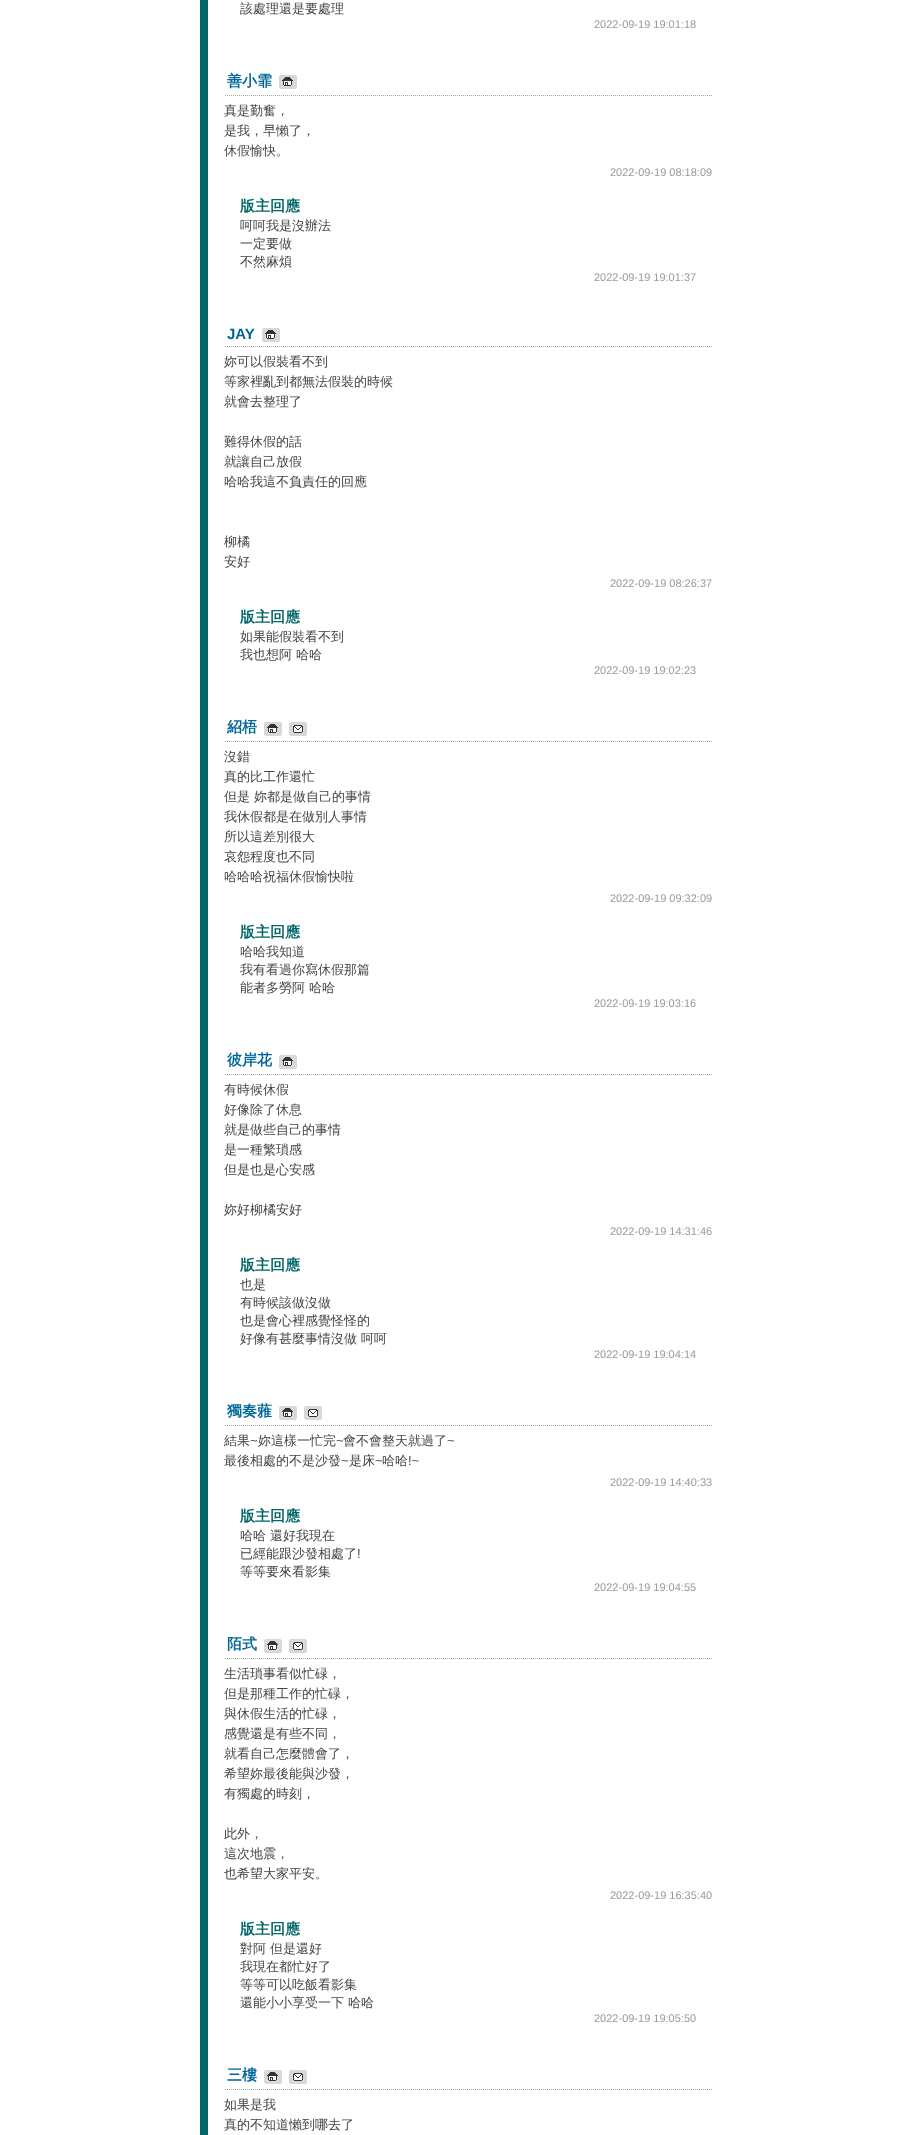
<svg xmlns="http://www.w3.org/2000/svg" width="909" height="2135">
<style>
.a{font:500 13px WenQuanYi Zen Hei;fill:#444}
.b{font:11px Liberation Sans;fill:#999}
.c{font:bold 15px WenQuanYi Zen Hei;fill:#069}
.d{font:bold 15px WenQuanYi Zen Hei;fill:#066}
.e{font:bold 15px Liberation Sans;fill:#069}
.f{font:13px Liberation Sans;fill:#444}
</style>
<rect width="100%" height="100%" fill="#fff"/>
<path fill="#066" d="M200 0h8v2135H200z"/>
<image href="1.png" x="225" y="95" width="487" height="1"/>
<image href="2.png" x="279" y="75" width="18" height="14"/>
<image href="1.png" x="225" y="346" width="487" height="1"/>
<image href="2.png" x="262" y="328" width="18" height="14"/>
<image href="1.png" x="225" y="741" width="487" height="1"/>
<image href="2.png" x="264" y="722" width="18" height="14"/>
<image href="3.png" x="289" y="722" width="18" height="14"/>
<image href="1.png" x="225" y="1074" width="487" height="1"/>
<image href="2.png" x="279" y="1055" width="18" height="14"/>
<image href="1.png" x="225" y="1425" width="487" height="1"/>
<image href="2.png" x="279" y="1406" width="18" height="14"/>
<image href="3.png" x="304" y="1406" width="18" height="14"/>
<image href="1.png" x="225" y="1658" width="487" height="1"/>
<image href="2.png" x="264" y="1639" width="18" height="14"/>
<image href="3.png" x="289" y="1639" width="18" height="14"/>
<image href="1.png" x="225" y="2089" width="487" height="1"/>
<image href="2.png" x="264" y="2070" width="18" height="14"/>
<image href="3.png" x="289" y="2070" width="18" height="14"/>
<text class="a" x="240" y="13">該處理還是要處理</text>
<text class="b" x="594" y="28">2022-09-19 19:01:18</text>
<text class="c" x="227" y="86">善小霏</text>
<text class="a" x="224" y="115">真是勤奮，</text>
<text class="a" x="224" y="135">是我，早懶了，</text>
<text class="a" x="224" y="155">休假愉快。</text>
<text class="b" x="610" y="176">2022-09-19 08:18:09</text>
<text class="d" x="240" y="211">版主回應</text>
<text class="a" x="240" y="230">呵呵我是沒辦法</text>
<text class="a" x="240" y="248">一定要做</text>
<text class="a" x="240" y="266">不然麻煩</text>
<text class="b" x="594" y="281">2022-09-19 19:01:37</text>
<text class="e" x="227" y="339">JAY</text>
<text class="a" x="224" y="366">妳可以假裝看不到</text>
<text class="a" x="224" y="386">等家裡亂到都無法假裝的時候</text>
<text class="a" x="224" y="406">就會去整理了</text>
<text class="a" x="224" y="446">難得休假的話</text>
<text class="a" x="224" y="466">就讓自己放假</text>
<text class="a" x="224" y="486">哈哈我這不負責任的回應</text>
<text class="a" x="224" y="546">柳橘</text>
<text class="a" x="224" y="566">安好</text>
<text class="b" x="610" y="587">2022-09-19 08:26:37</text>
<text class="d" x="240" y="622">版主回應</text>
<text class="a" x="240" y="641">如果能假裝看不到</text>
<text class="a" x="240" y="659">我也想阿 哈哈</text>
<text class="b" x="594" y="674">2022-09-19 19:02:23</text>
<text class="c" x="227" y="732">紹梧</text>
<text class="a" x="224" y="761">沒錯</text>
<text class="a" x="224" y="781">真的比工作還忙</text>
<text class="a" x="224" y="801">但是 妳都是做自己的事情</text>
<text class="a" x="224" y="821">我休假都是在做別人事情</text>
<text class="a" x="224" y="841">所以這差別很大</text>
<text class="a" x="224" y="861">哀怨程度也不同</text>
<text class="a" x="224" y="881">哈哈哈祝福休假愉快啦</text>
<text class="b" x="610" y="902">2022-09-19 09:32:09</text>
<text class="d" x="240" y="937">版主回應</text>
<text class="a" x="240" y="956">哈哈我知道</text>
<text class="a" x="240" y="974">我有看過你寫休假那篇</text>
<text class="a" x="240" y="992">能者多勞阿 哈哈</text>
<text class="b" x="594" y="1007">2022-09-19 19:03:16</text>
<text class="c" x="227" y="1065">彼岸花</text>
<text class="a" x="224" y="1094">有時候休假</text>
<text class="a" x="224" y="1114">好像除了休息</text>
<text class="a" x="224" y="1134">就是做些自己的事情</text>
<text class="a" x="224" y="1154">是一種繁瑣感</text>
<text class="a" x="224" y="1174">但是也是心安感</text>
<text class="a" x="224" y="1214">妳好柳橘安好</text>
<text class="b" x="610" y="1235">2022-09-19 14:31:46</text>
<text class="d" x="240" y="1270">版主回應</text>
<text class="a" x="240" y="1289">也是</text>
<text class="a" x="240" y="1307">有時候該做沒做</text>
<text class="a" x="240" y="1325">也是會心裡感覺怪怪的</text>
<text class="a" x="240" y="1343">好像有甚麼事情沒做 呵呵</text>
<text class="b" x="594" y="1358">2022-09-19 19:04:14</text>
<text class="c" x="227" y="1416">獨奏蕥</text>
<text class="a" x="224" y="1445">結果</text>
<text class="f" x="250" y="1445">~</text>
<text class="a" x="258" y="1445">妳這樣一忙完</text>
<text class="f" x="336" y="1445">~</text>
<text class="a" x="343" y="1445">會不會整天就過了</text>
<text class="f" x="447" y="1445">~</text>
<text class="a" x="224" y="1465">最後相處的不是沙發</text>
<text class="f" x="341" y="1465">~</text>
<text class="a" x="349" y="1465">是床</text>
<text class="f" x="375" y="1465">~</text>
<text class="a" x="382" y="1465">哈哈</text>
<text class="f" x="408" y="1465">!~</text>
<text class="b" x="610" y="1486">2022-09-19 14:40:33</text>
<text class="d" x="240" y="1521">版主回應</text>
<text class="a" x="240" y="1540">哈哈 還好我現在</text>
<text class="a" x="240" y="1558">已經能跟沙發相處了</text>
<text class="f" x="357" y="1558">!</text>
<text class="a" x="240" y="1576">等等要來看影集</text>
<text class="b" x="594" y="1591">2022-09-19 19:04:55</text>
<text class="c" x="227" y="1649">陌式</text>
<text class="a" x="224" y="1678">生活瑣事看似忙碌，</text>
<text class="a" x="224" y="1698">但是那種工作的忙碌，</text>
<text class="a" x="224" y="1718">與休假生活的忙碌，</text>
<text class="a" x="224" y="1738">感覺還是有些不同，</text>
<text class="a" x="224" y="1758">就看自己怎麼體會了，</text>
<text class="a" x="224" y="1778">希望妳最後能與沙發，</text>
<text class="a" x="224" y="1798">有獨處的時刻，</text>
<text class="a" x="224" y="1838">此外，</text>
<text class="a" x="224" y="1858">這次地震，</text>
<text class="a" x="224" y="1878">也希望大家平安。</text>
<text class="b" x="610" y="1899">2022-09-19 16:35:40</text>
<text class="d" x="240" y="1934">版主回應</text>
<text class="a" x="240" y="1953">對阿 但是還好</text>
<text class="a" x="240" y="1971">我現在都忙好了</text>
<text class="a" x="240" y="1989">等等可以吃飯看影集</text>
<text class="a" x="240" y="2007">還能小小享受一下 哈哈</text>
<text class="b" x="594" y="2022">2022-09-19 19:05:50</text>
<text class="c" x="227" y="2080">三樓</text>
<text class="a" x="224" y="2109">如果是我</text>
<text class="a" x="224" y="2129">真的不知道懶到哪去了</text>
</svg>
